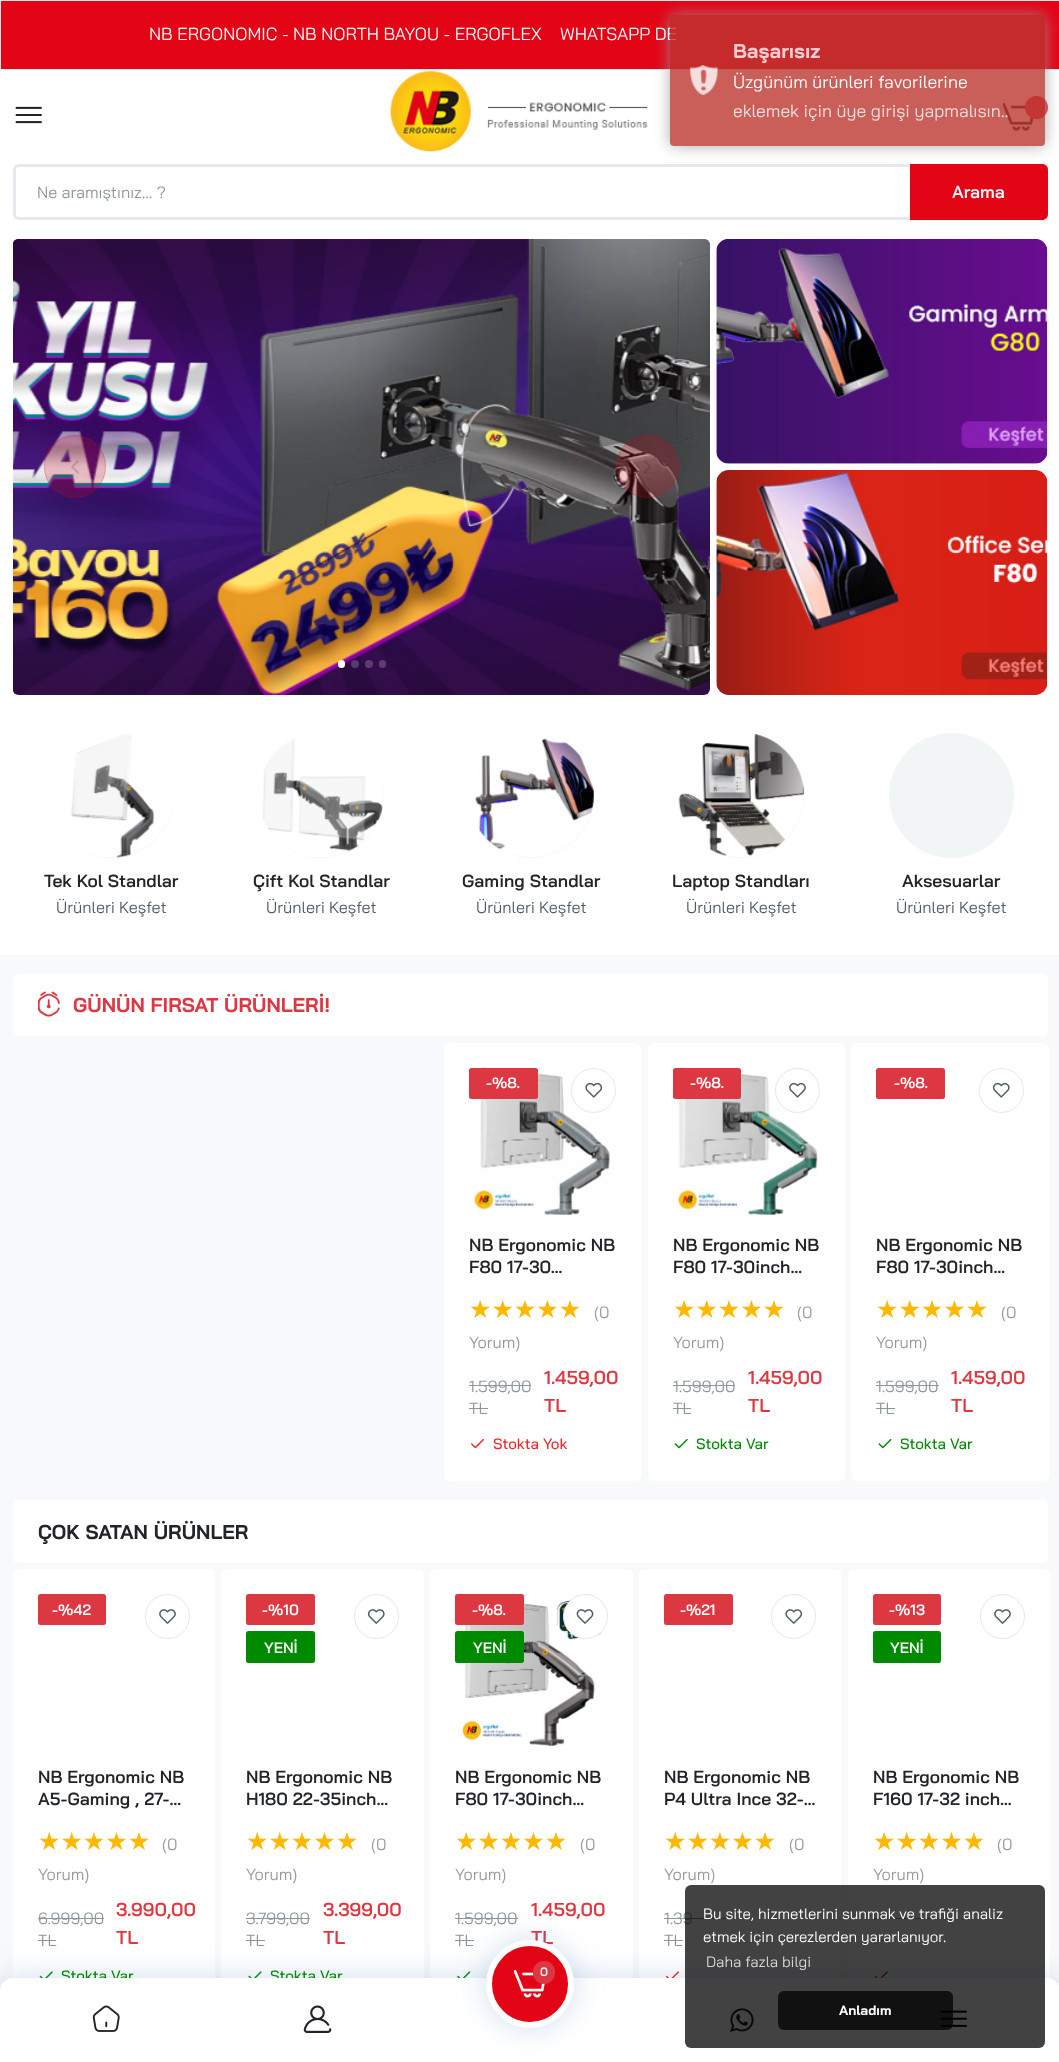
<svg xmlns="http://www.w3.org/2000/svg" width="1059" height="2062">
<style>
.a{font:17.5px Bai Jamjuree;fill:#fff}
.b{font:16.25px Bai Jamjuree;fill:#8d979e}
.c{font:600 17.5px Bai Jamjuree;fill:#fff}
.d{font:600 17.5px Bai Jamjuree;fill:#212529}
.e{font:16.25px Bai Jamjuree;fill:#515d66}
.f{font:bold 20px Bai Jamjuree;fill:#dd3842}
.g{font:600 15px Bai Jamjuree;fill:#fff}
.h{font:25px DejaVu Sans;fill:#ffb800}
.i{font:16.25px Bai Jamjuree;fill:#999}
.j{font:600 18.75px Bai Jamjuree;fill:#dd3842}
.k{font:500 15px Bai Jamjuree;fill:#ef262c}
.l{font:500 15px Bai Jamjuree;fill:#008a00}
.m{font:bold 20px Bai Jamjuree;fill:#212529}
.n{font:600 12px Bai Jamjuree;fill:#fff}
.o{font:bold 20px Bai Jamjuree;fill:#f9cdd0}
.p{font:17.5px Bai Jamjuree;fill:#f4dfde}
.q{font:15px Bai Jamjuree;fill:#fff}
.r{font:15px Bai Jamjuree;fill:#d9d9d9}
.s{font:bold 13.5px Bai Jamjuree;fill:#fff}
</style>
<defs>
<clipPath id="clip1"><path d="M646 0h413v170h-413zm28 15h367c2 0 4 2 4 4v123c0 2-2 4-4 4h-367c-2 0-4-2-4-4v-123c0-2 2-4 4-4z" clip-rule="evenodd"/></clipPath>
<clipPath id="clip2"><path d="M38 181h851v20H38z"/></clipPath>
</defs>
<rect width="100%" height="100%" fill="#f8f9fa"/>
<path fill="#e30416" stroke="#e5e8ec" d="M0.5 0.5h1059v69H0.5z"/>
<path fill="#fff" d="M0 70h1059v885H0z"/>
<image href="1.png" x="15" y="106" width="27" height="18"/>
<image href="2.png" x="390" y="71" width="258" height="81"/>
<image href="3.png" x="1003" y="103" width="31" height="28"/>
<circle fill="#dd3842" cx="1036.5" cy="107.5" r="11.5"/>
<rect fill="none" stroke="#e5e8ec" stroke-width="3" x="14.5" y="165.5" width="1032" height="53" rx="4.5"/>
<path fill="#e30416" d="M910 164h132c3.5 0 6 2.5 6 6v44c0 3.5-2.5 6-6 6h-132z"/>
<image href="4.png" x="13" y="239" width="697" height="456"/>
<rect fill="#e3041633" x="44" y="435" width="62" height="63" rx="31"/>
<rect fill="none" stroke="#e3041633" x="44.5" y="435.5" width="61" height="62" rx="30.5"/>
<image href="5.png" x="71" y="460" width="8" height="14"/>
<circle fill="#e3041633" cx="647.5" cy="466.5" r="31.5"/>
<circle fill="none" stroke="#e3041633" cx="647.5" cy="466.5" r="31"/>
<image href="6.png" x="644" y="460" width="7" height="14"/>
<rect fill="#fff" x="338" y="660" width="7" height="8" rx="3.5"/>
<circle fill="#ffffff33" cx="355" cy="664" r="4"/>
<circle fill="#5b3d6f" cx="369" cy="664" r="4"/>
<rect fill="#5b3e6f" x="379" y="660" width="7" height="8" rx="3.5"/>
<image href="7.png" x="716" y="239" width="332" height="225"/>
<image href="8.png" x="716" y="470" width="332" height="225"/>
<circle fill="#f1f5f6" cx="111.5" cy="795.5" r="62.5"/>
<image href="9.png" x="49" y="733" width="125" height="125"/>
<circle fill="#f1f5f6" cx="321.5" cy="795.5" r="62.5"/>
<image href="10.png" x="259" y="733" width="125" height="124"/>
<circle fill="#f1f5f6" cx="531.5" cy="795.5" r="62.5"/>
<image href="11.png" x="469" y="733" width="125" height="124"/>
<circle fill="#f1f5f6" cx="741.5" cy="795.5" r="62.5"/>
<image href="12.png" x="678" y="733" width="126" height="124"/>
<circle fill="#f1f5f6" cx="951.5" cy="795.5" r="62.5"/>
<rect fill="#fff" x="13" y="974" width="1035" height="62" rx="6"/>
<image href="13.png" x="38" y="991" width="22" height="26"/>
<rect fill="#fff" x="444" y="1043" width="197" height="438" rx="6"/>
<image href="14.png" x="474" y="1067" width="137" height="148"/>
<rect fill="#dd3842" x="469" y="1068" width="69" height="31" rx="2.5"/>
<circle fill="none" stroke="#e5e8ec" cx="593.5" cy="1090.5" r="22"/>
<image href="15.png" x="585" y="1082" width="18" height="16"/>
<path fill="#8d979e" d="M469 1385h62v1H469z"/>
<path fill="#8d979e" d="M469 1408h19v1H469z"/>
<image href="16.png" x="471" y="1438" width="13" height="11"/>
<rect fill="#fff" x="648" y="1043" width="197" height="438" rx="6"/>
<image href="17.png" x="677" y="1067" width="141" height="148"/>
<rect fill="#dd3842" x="673" y="1068" width="68" height="31" rx="2.5"/>
<circle fill="none" stroke="#e5e8ec" cx="797.5" cy="1090.5" r="22"/>
<image href="18.png" x="789" y="1082" width="17" height="16"/>
<path fill="#8d979e" d="M673 1385h62v1H673z"/>
<path fill="#8d979e" d="M673 1408h18v1H673z"/>
<image href="19.png" x="674" y="1438" width="14" height="11"/>
<rect fill="#fff" x="851" y="1043" width="198" height="438" rx="6"/>
<rect fill="#dd3842" x="876" y="1068" width="69" height="31" rx="2.5"/>
<circle fill="none" stroke="#e5e8ec" cx="1001.5" cy="1090.5" r="22"/>
<image href="20.png" x="992" y="1082" width="18" height="16"/>
<path fill="#8d979e" d="M876 1385h63v1H876z"/>
<path fill="#8d979e" d="M876 1408h19v1H876z"/>
<image href="21.png" x="878" y="1438" width="14" height="11"/>
<rect fill="#fff" x="13" y="1500" width="1035" height="63" rx="6"/>
<rect fill="#fff" x="13" y="1569" width="202" height="445" rx="6"/>
<rect fill="#dd3842" x="38" y="1594" width="68" height="31" rx="2.5"/>
<circle fill="none" stroke="#e5e8ec" cx="167.5" cy="1616.5" r="22"/>
<image href="22.png" x="159" y="1609" width="17" height="15"/>
<path fill="#8d979e" d="M38 1918h66v1H38z"/>
<path fill="#8d979e" d="M38 1940h18v1H38z"/>
<image href="23.png" x="39" y="1971" width="14" height="7"/>
<rect fill="#fff" x="221" y="1569" width="203" height="445" rx="6"/>
<rect fill="#dd3842" x="246" y="1594" width="69" height="31" rx="2.5"/>
<rect fill="#008a00" x="246" y="1631" width="69" height="32" rx="2.5"/>
<circle fill="none" stroke="#e5e8ec" cx="376.5" cy="1616.5" r="22"/>
<image href="24.png" x="367" y="1609" width="18" height="15"/>
<path fill="#8d979e" d="M246 1918h64v1H246z"/>
<path fill="#8d979e" d="M246 1940h19v1H246z"/>
<image href="25.png" x="248" y="1971" width="14" height="7"/>
<rect fill="#fff" x="430" y="1569" width="203" height="445" rx="6"/>
<image href="27.png" x="462" y="1597" width="140" height="149"/>
<circle fill="#fff" stroke="#e5e8ec" cx="585.5" cy="1616.5" r="22"/>
<image href="26.png" x="576" y="1609" width="18" height="15"/>
<rect fill="#dd3842" x="455" y="1594" width="69" height="31" rx="2.5"/>
<rect fill="#008a00" x="455" y="1631" width="69" height="32" rx="2.5"/>
<path fill="#8d979e" d="M455 1918h63v1H455z"/>
<path fill="#8d979e" d="M455 1940h19v1H455z"/>
<image href="28.png" x="457" y="1971" width="14" height="7"/>
<rect fill="#fff" x="639" y="1569" width="202" height="445" rx="6"/>
<rect fill="#dd3842" x="664" y="1594" width="69" height="31" rx="2.5"/>
<circle fill="none" stroke="#e5e8ec" cx="793.5" cy="1616.5" r="22"/>
<image href="29.png" x="785" y="1609" width="18" height="15"/>
<path fill="#8d979e" d="M664 1918h62v1H664z"/>
<path fill="#8d979e" d="M664 1940h19v1H664z"/>
<image href="30.png" x="666" y="1971" width="13" height="7"/>
<rect fill="#fff" x="848" y="1569" width="202" height="445" rx="6"/>
<rect fill="#dd3842" x="873" y="1594" width="68" height="31" rx="2.5"/>
<rect fill="#008a00" x="873" y="1631" width="68" height="32" rx="2.5"/>
<circle fill="none" stroke="#e5e8ec" cx="1002.5" cy="1616.5" r="22"/>
<image href="22.png" x="994" y="1609" width="17" height="15"/>
<path fill="#8d979e" d="M873 1918h66v1H873z"/>
<path fill="#8d979e" d="M873 1940h18v1H873z"/>
<image href="31.png" x="874" y="1971" width="14" height="7"/>
<rect fill="#487bb740" filter="blur(15.5px)" y="1978" width="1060" height="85" rx="13"/>
<g clip-path="url(#clip1)">
<rect fill="#999999cc" filter="blur(7.5px)" x="670" y="15" width="375" height="131" rx="4"/>
</g>
<text class="a" xml:space="preserve" x="149" y="40">NB ERGONOMIC - NB NORTH BAYOU - ERGOFLEX    WHATSAPP DE</text>
<g clip-path="url(#clip2)">
<text class="b" x="37" y="198">Ne aramıştınız... ?</text>
</g>
<text class="c" x="952" y="198">Arama</text>
<text class="d" x="44" y="887">Tek Kol Standlar</text>
<text class="e" x="56" y="913">Ürünleri Keşfet</text>
<text class="d" x="253" y="887">Çift Kol Standlar</text>
<text class="e" x="266" y="913">Ürünleri Keşfet</text>
<text class="d" x="462" y="887">Gaming Standlar</text>
<text class="e" x="476" y="913">Ürünleri Keşfet</text>
<text class="d" x="672" y="887">Laptop Standları</text>
<text class="e" x="686" y="913">Ürünleri Keşfet</text>
<text class="d" x="902" y="887">Aksesuarlar</text>
<text class="e" x="896" y="913">Ürünleri Keşfet</text>
<text class="f" x="73" y="1012">GÜNÜN FIRSAT ÜRÜNLERİ!</text>
<text class="g" x="486" y="1088">-%8.</text>
<text class="d" x="469" y="1251">NB Ergonomic NB</text>
<text class="d" x="469" y="1273">F80 17-30…</text>
<text class="h" x="469" y="1318">★★★★★</text>
<text class="i" x="594" y="1318">(0</text>
<text class="i" x="469" y="1348">Yorum)</text>
<text class="b" x="469" y="1392">1.599,00</text>
<text class="b" x="469" y="1414">TL</text>
<text class="j" x="544" y="1384">1.459,00</text>
<text class="j" x="544" y="1412">TL</text>
<text class="k" x="493" y="1449">Stokta Yok</text>
<text class="g" x="690" y="1088">-%8.</text>
<text class="d" x="673" y="1251">NB Ergonomic NB</text>
<text class="d" x="673" y="1273">F80 17-30inch…</text>
<text class="h" x="673" y="1318">★★★★★</text>
<text class="i" x="797" y="1318">(0</text>
<text class="i" x="673" y="1348">Yorum)</text>
<text class="b" x="673" y="1392">1.599,00</text>
<text class="b" x="673" y="1414">TL</text>
<text class="j" x="748" y="1384">1.459,00</text>
<text class="j" x="748" y="1412">TL</text>
<text class="l" x="696" y="1449">Stokta Var</text>
<text class="g" x="894" y="1088">-%8.</text>
<text class="d" x="876" y="1251">NB Ergonomic NB</text>
<text class="d" x="876" y="1273">F80 17-30inch…</text>
<text class="h" x="876" y="1318">★★★★★</text>
<text class="i" x="1001" y="1318">(0</text>
<text class="i" x="876" y="1348">Yorum)</text>
<text class="b" x="876" y="1392">1.599,00</text>
<text class="b" x="876" y="1414">TL</text>
<text class="j" x="951" y="1384">1.459,00</text>
<text class="j" x="951" y="1412">TL</text>
<text class="l" x="900" y="1449">Stokta Var</text>
<text class="m" x="38" y="1539">ÇOK SATAN ÜRÜNLER</text>
<text class="g" x="52" y="1615">-%42</text>
<text class="d" x="38" y="1783">NB Ergonomic NB</text>
<text class="d" x="38" y="1805">A5-Gaming , 27-…</text>
<text class="h" x="38" y="1850">★★★★★</text>
<text class="i" x="162" y="1850">(0</text>
<text class="i" x="38" y="1880">Yorum)</text>
<text class="b" x="38" y="1924">6.999,00</text>
<text class="b" x="38" y="1946">TL</text>
<text class="j" x="116" y="1916">3.990,00</text>
<text class="j" x="116" y="1944">TL</text>
<text class="l" x="61" y="1981">Stokta Var</text>
<text class="g" x="262" y="1615">-%10</text>
<text class="g" x="264" y="1653">YENİ</text>
<text class="d" x="246" y="1783">NB Ergonomic NB</text>
<text class="d" x="246" y="1805">H180 22-35inch…</text>
<text class="h" x="246" y="1850">★★★★★</text>
<text class="i" x="371" y="1850">(0</text>
<text class="i" x="246" y="1880">Yorum)</text>
<text class="b" x="246" y="1924">3.799,00</text>
<text class="b" x="246" y="1946">TL</text>
<text class="j" x="323" y="1916">3.399,00</text>
<text class="j" x="323" y="1944">TL</text>
<text class="l" x="270" y="1981">Stokta Var</text>
<text class="g" x="472" y="1615">-%8.</text>
<text class="g" x="473" y="1653">YENİ</text>
<text class="d" x="455" y="1783">NB Ergonomic NB</text>
<text class="d" x="455" y="1805">F80 17-30inch…</text>
<text class="h" x="455" y="1850">★★★★★</text>
<text class="i" x="580" y="1850">(0</text>
<text class="i" x="455" y="1880">Yorum)</text>
<text class="b" x="455" y="1924">1.599,00</text>
<text class="b" x="455" y="1946">TL</text>
<text class="j" x="531" y="1916">1.459,00</text>
<text class="j" x="531" y="1944">TL</text>
<text class="g" x="680" y="1615">-%21</text>
<text class="d" x="664" y="1783">NB Ergonomic NB</text>
<text class="d" x="664" y="1805">P4 Ultra Ince 32-…</text>
<text class="h" x="664" y="1850">★★★★★</text>
<text class="i" x="789" y="1850">(0</text>
<text class="i" x="664" y="1880">Yorum)</text>
<text class="b" x="664" y="1924">1.39</text>
<text class="b" x="664" y="1946">TL</text>
<text class="g" x="889" y="1615">-%13</text>
<text class="g" x="890" y="1653">YENİ</text>
<text class="d" x="873" y="1783">NB Ergonomic NB</text>
<text class="d" x="873" y="1805">F160 17-32 inch…</text>
<text class="h" x="873" y="1850">★★★★★</text>
<text class="i" x="997" y="1850">(0</text>
<text class="i" x="873" y="1880">Yorum)</text>
<path fill="#fff" d="M13 1978h1034c7 0 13 6 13 13v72h-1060v-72c0-7 6-13 13-13z"/>
<rect fill="#487bb740" filter="blur(15.5px)" x="486" y="1940" width="88" height="88" rx="44"/>
<circle fill="#e30416" stroke="#fff" stroke-width="6" cx="530" cy="1984" r="41"/>
<image href="32.png" x="514" y="1970" width="31" height="28"/>
<rect fill="#dd3842" x="533" y="1961" width="22" height="23" rx="11"/>
<text class="n" x="540" y="1976">0</text>
<image href="33.png" x="92" y="2005" width="28" height="27"/>
<image href="34.png" x="303" y="2005" width="29" height="28"/>
<image href="35.png" x="730" y="2008" width="24" height="24"/>
<image href="36.png" x="940" y="2010" width="27" height="17"/>
<rect fill="#bd362fcc" x="670" y="15" width="375" height="131" rx="4"/>
<image href="37.png" x="689" y="65" width="29" height="30"/>
<text class="o" x="733" y="58">Başarısız</text>
<text class="a" x="733" y="88">Üzgünüm ürünleri favorilerine</text>
<text class="p" x="733" y="117">eklemek için üye girişi yapmalısın..</text>
<rect fill="#000000bd" x="685" y="1885" width="360" height="163" rx="6"/>
<text class="q" x="703" y="1919">Bu site, hizmetlerini sunmak ve trafiği analiz</text>
<text class="q" x="703" y="1942">etmek için çerezlerden yararlanıyor.</text>
<text class="r" x="706" y="1967">Daha fazla bilgi</text>
<rect fill="#000000bd" x="778" y="1991" width="175" height="39" rx="6"/>
<text class="s" x="839" y="2015">Anladım</text>
</svg>
